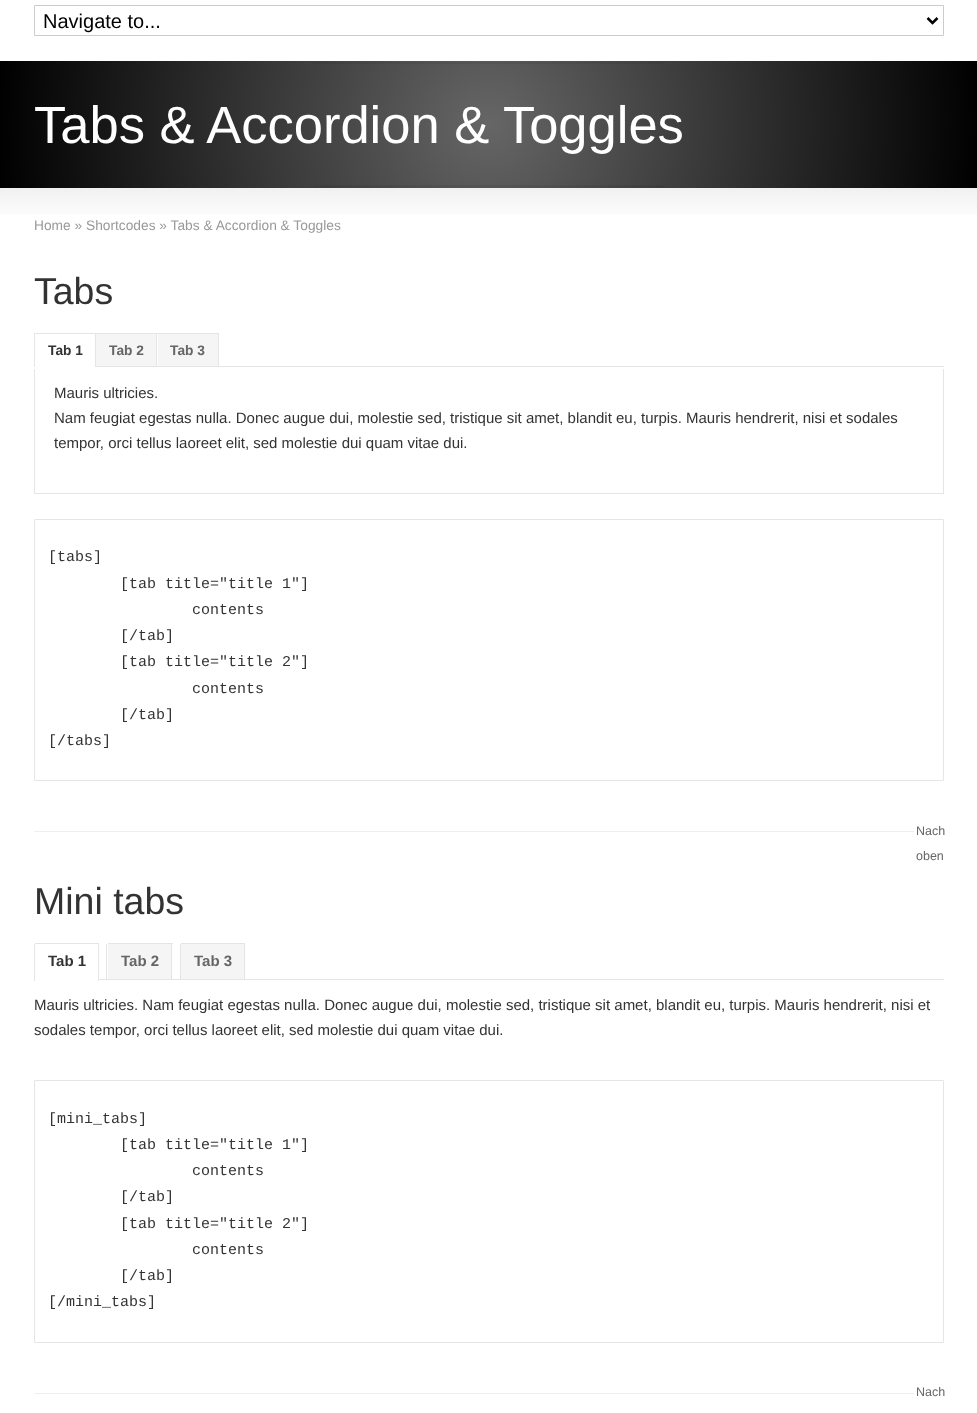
<svg xmlns="http://www.w3.org/2000/svg" width="977" height="1413">
<style>
.a{font:20px Liberation Sans;fill:#000}
.b{font:52.5px Liberation Sans;fill:#fff}
.c{font:13.75px Liberation Sans;fill:#999}
.d{font:37.5px Liberation Sans;fill:#333}
.e{font:bold 13.75px Liberation Sans;fill:#333}
.f{font:bold 13.75px Liberation Sans;fill:#666}
.g{font:15px Liberation Sans;fill:#333}
.h{font:15px Liberation Mono;fill:#333}
.i{font:12.5px Liberation Sans;fill:#666}
.j{font:bold 15px Liberation Sans;fill:#333}
.k{font:bold 15px Liberation Sans;fill:#666}
</style>
<defs>
<radialGradient id="g1" gradientUnits="userSpaceOnUse" cx="489" cy="124" r="493"><stop offset="0" stop-color="#666"/><stop offset="1" stop-color="#000"/></radialGradient>
<radialGradient id="g2" gradientUnits="userSpaceOnUse" cx="489" cy="124" r="493"><stop offset="0" stop-color="#606060"/><stop offset="1" stop-color="#000"/></radialGradient>
<linearGradient id="g3" gradientUnits="userSpaceOnUse" x1="489" y1="187" x2="489" y2="221"><stop offset="0" stop-color="#f0f0f0"/><stop offset="1" stop-color="#fff"/></linearGradient>
</defs>
<rect width="100%" height="100%" fill="#fff"/>
<path fill="none" stroke="#ccc" d="M34.5 5.5h909v30H34.5z"/>
<path fill="none" stroke="#000" stroke-width="2.5" d="M927.5 18l5 5l5-5"/>
<path fill="url(#g1)" d="M0 61h977v127H0z"/>
<path fill="url(#g2)" d="M313 62h352v2H313z"/>
<path fill="url(#g2)" d="M314 185h350v3H314z"/>
<path fill="url(#g3)" d="M0 188h977v27H0z"/>
<path fill="#e5e5e5" d="M34 366h910v1H34z"/>
<path fill="#e5e5e5" d="M34 333h62v1H34z"/>
<path fill="#e5e5e5" d="M95 333h1v33H95z"/>
<path fill="#e5e5e5" d="M34 333h1v33H34z"/>
<path fill="#fff" d="M35 366h60v1H35z"/>
<path fill="#e5e5e5" d="M95 333h63v1H95z"/>
<path fill="#e5e5e5" d="M156 333h1v33H156z"/>
<path fill="#f5f5f5" d="M96 334h60v32H96z"/>
<path fill="#e5e5e5" d="M156 333h63v1H156z"/>
<path fill="#e5e5e5" d="M218 333h1v33H218z"/>
<path fill="#f5f5f5" d="M158 334h60v32H158z"/>
<path fill="#e5e5e5" d="M943 369h1v125H943z"/>
<path fill="#e5e5e5" d="M35 493h909v1H35z"/>
<path fill="#e5e5e5" d="M34 369h1v125H34z"/>
<rect fill="none" stroke="#e5e5e5" x="34.5" y="519.5" width="909" height="261" rx="0.5"/>
<path fill="#eee" d="M34 831h880v1H34z"/>
<path fill="#e5e5e5" d="M35 943h64v1H35z"/>
<path fill="#e5e5e5" d="M98 944h1v37H98z"/>
<path fill="#e5e5e5" d="M34 944h1v37H34z"/>
<path fill="#e5e5e5" d="M108 943h65v1H108z"/>
<path fill="#e5e5e5" d="M99 979h845v1H99z"/>
<path fill="#e5e5e5" d="M171 944h1v36H171z"/>
<path fill="#e5e5e5" d="M106 944h1v36H106z"/>
<path fill="#f5f5f5" d="M108 944h63v35H108z"/>
<path fill="#e5e5e5" d="M181 943h64v1H181z"/>
<path fill="#e5e5e5" d="M244 944h1v36H244z"/>
<path fill="#e5e5e5" d="M180 944h1v36H180z"/>
<path fill="#f5f5f5" d="M181 944h63v35H181z"/>
<rect fill="none" stroke="#e5e5e5" x="34.5" y="1080.5" width="909" height="262" rx="0.5"/>
<path fill="#eee" d="M34 1393h880v1H34z"/>
<text class="a" x="43" y="28">Navigate to...</text>
<text class="b" x="34" y="143">Tabs &amp; Accordion &amp; Toggles</text>
<text class="c" x="34" y="230">Home » Shortcodes » Tabs &amp; Accordion &amp; Toggles</text>
<text class="d" x="34" y="304">Tabs</text>
<text class="e" x="48" y="355">Tab 1</text>
<text class="f" x="109" y="355">Tab 2</text>
<text class="f" x="170" y="355">Tab 3</text>
<text class="g" x="54" y="398">Mauris ultricies.</text>
<text class="g" x="54" y="423">Nam feugiat egestas nulla. Donec augue dui, molestie sed, tristique sit amet, blandit eu, turpis. Mauris hendrerit, nisi et sodales</text>
<text class="g" x="54" y="448">tempor, orci tellus laoreet elit, sed molestie dui quam vitae dui.</text>
<text class="h" x="48" y="561">[tabs]</text>
<text class="h" x="120" y="588">[tab title="title 1"]</text>
<text class="h" x="192" y="614">contents</text>
<text class="h" x="120" y="640">[/tab]</text>
<text class="h" x="120" y="666">[tab title="title 2"]</text>
<text class="h" x="192" y="693">contents</text>
<text class="h" x="120" y="719">[/tab]</text>
<text class="h" x="48" y="745">[/tabs]</text>
<text class="i" x="916" y="835">Nach</text>
<text class="i" x="916" y="860">oben</text>
<text class="d" x="34" y="914">Mini tabs</text>
<text class="j" x="48" y="966">Tab 1</text>
<text class="k" x="121" y="966">Tab 2</text>
<text class="k" x="194" y="966">Tab 3</text>
<text class="g" x="34" y="1010">Mauris ultricies. Nam feugiat egestas nulla. Donec augue dui, molestie sed, tristique sit amet, blandit eu, turpis. Mauris hendrerit, nisi et</text>
<text class="g" x="34" y="1035">sodales tempor, orci tellus laoreet elit, sed molestie dui quam vitae dui.</text>
<text class="h" x="48" y="1123">[mini_tabs]</text>
<text class="h" x="120" y="1149">[tab title="title 1"]</text>
<text class="h" x="192" y="1175">contents</text>
<text class="h" x="120" y="1201">[/tab]</text>
<text class="h" x="120" y="1228">[tab title="title 2"]</text>
<text class="h" x="192" y="1254">contents</text>
<text class="h" x="120" y="1280">[/tab]</text>
<text class="h" x="48" y="1306">[/mini_tabs]</text>
<text class="i" x="916" y="1396">Nach</text>
</svg>
